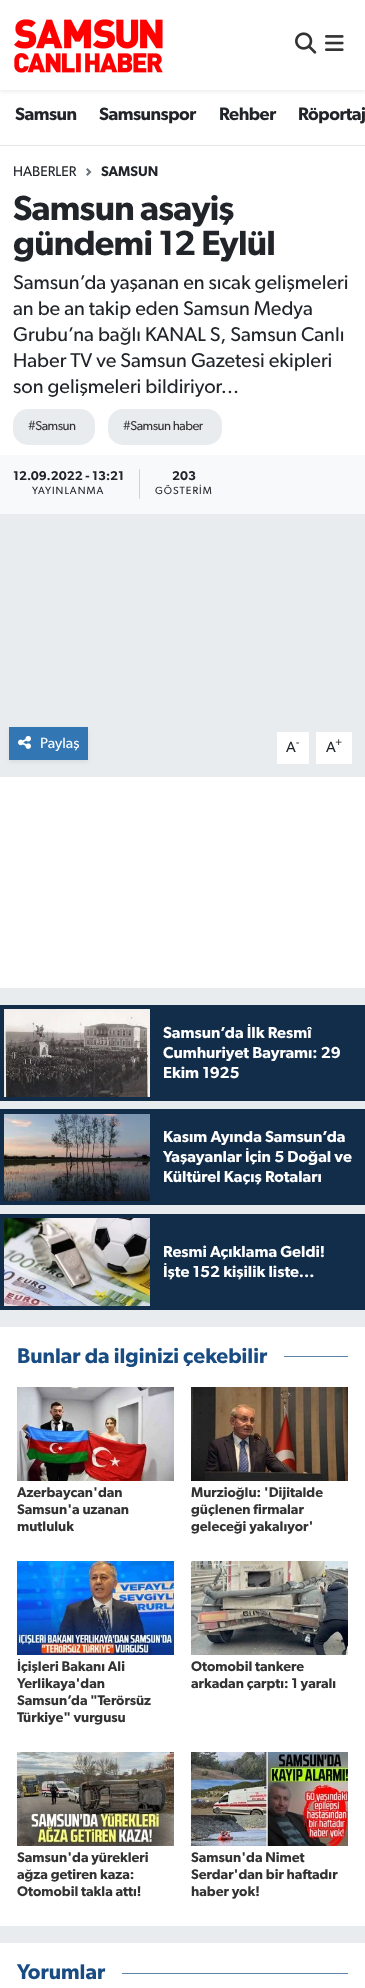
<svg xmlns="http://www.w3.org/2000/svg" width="365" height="1988">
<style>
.a{font:600 18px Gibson;letter-spacing:-0.5px;fill:#212529}
.b{font:14px Gibson;fill:#212529}
.c{font:600 14px Gibson;fill:#212529}
.d{font:600 35px Gibson;letter-spacing:-0.75px;fill:#212529}
.e{font:20px Gibson;fill:#212529}
.f{font:13px Gibson;letter-spacing:-0.5px;fill:#333}
.g{font:600 12.75px Gibson;fill:#212529}
.h{font:10.5px Gibson;letter-spacing:1px;fill:#212529}
.i{font:15px Gibson;fill:#fff}
.j{font:15px Gibson;fill:#212529}
.k{font:11px Gibson;fill:#212529}
.l{font:600 16px Gibson;fill:#fff}
.m{font:600 21.25px Gibson;fill:#194c82}
.n{font:600 14px Gibson;fill:#333}
</style>
<rect width="100%" height="100%" fill="#e9ecef"/>
<path fill="#fff" d="M0 90h365v55H0z"/>
<path fill="#00000012" filter="blur(2px)" d="M0 2h365v90H0z"/>
<path fill="#fff" d="M0 0h365v90H0z"/>
<image href="1.png" x="14" y="19" width="149" height="54"/>
<image href="2.png" x="295" y="32" width="22" height="22"/>
<image href="3.png" x="325" y="35" width="19" height="16"/>
<path fill="#e6e6e6" d="M0 145h365v1H0z"/>
<path fill="#fff" d="M0 146h365v309H0z"/>
<image href="4.png" x="86" y="168" width="6" height="8"/>
<rect fill="#e9ecef" x="13" y="409" width="82" height="36" rx="15"/>
<rect fill="#e9ecef" x="108" y="409" width="114" height="36" rx="15"/>
<path fill="#f8f9fa" d="M0 455h365v59H0z"/>
<path fill="#ced4da" d="M139 469h1v30H139z"/>
<path fill="#00000012" filter="blur(2px)" d="M9 729h79v33H9z"/>
<path fill="#3276b3" d="M9 727h79v33H9z"/>
<image href="5.png" x="18" y="735" width="13" height="14"/>
<path fill="#fff" d="M277 732h32v32H277z"/>
<path fill="#fff" d="M316 732h36v32H316z"/>
<path fill="#fff" d="M0 777h365v211H0z"/>
<path fill="#122d4a" d="M0 1005h365v96H0z"/>
<image href="6.png" x="4" y="1009" width="146" height="88"/>
<path fill="#122d4a" d="M0 1109h365v96H0z"/>
<image href="7.png" x="4" y="1114" width="146" height="87"/>
<path fill="#122d4a" d="M0 1214h365v96H0z"/>
<image href="8.png" x="4" y="1218" width="146" height="88"/>
<path fill="#fff" d="M0 1327h365v599H0z"/>
<path fill="#5e82a8" d="M284 1356h64v1H284z"/>
<image href="9.png" x="17" y="1387" width="157" height="94"/>
<image href="10.png" x="191" y="1387" width="157" height="94"/>
<image href="11.png" x="17" y="1561" width="157" height="94"/>
<image href="12.png" x="191" y="1561" width="157" height="94"/>
<image href="13.png" x="17" y="1752" width="157" height="94"/>
<image href="14.png" x="191" y="1752" width="157" height="94"/>
<path fill="#fff" d="M0 1943h365v45H0z"/>
<path fill="#5e82a8" d="M122 1973h226v1H122z"/>
<text class="a" x="15" y="120">Samsun</text>
<text class="a" x="99" y="120">Samsunspor</text>
<text class="a" x="219" y="120">Rehber</text>
<text class="a" x="298" y="120">Röportaj</text>
<text class="b" x="13" y="176">HABERLER</text>
<text class="c" x="101" y="176">SAMSUN</text>
<text class="d" x="13" y="220">Samsun asayiş</text>
<text class="d" x="13" y="255">gündemi 12 Eylül</text>
<text class="e" x="13" y="289">Samsun’da yaşanan en sıcak gelişmeleri</text>
<text class="e" x="13" y="315">an be an takip eden Samsun Medya</text>
<text class="e" x="13" y="341">Grubu’na bağlı KANAL S, Samsun Canlı</text>
<text class="e" x="13" y="367">Haber TV ve Samsun Gazetesi ekipleri</text>
<text class="e" x="13" y="393">son gelişmeleri bildiriyor…</text>
<text class="f" x="28" y="430">#Samsun</text>
<text class="f" x="123" y="430">#Samsun haber</text>
<text class="g" x="13" y="480">12.09.2022 - 13:21</text>
<text class="h" x="32" y="494">YAYINLANMA</text>
<text class="g" x="172" y="480">203</text>
<text class="h" x="155" y="494">GÖSTERİM</text>
<text class="i" x="40" y="748">Paylaş</text>
<text class="j" x="286" y="752">A</text>
<text class="k" x="296" y="746">-</text>
<text class="j" x="326" y="752">A</text>
<text class="k" x="335" y="746">+</text>
<text class="l" x="163" y="1038">Samsun’da İlk Resmî</text>
<text class="l" x="163" y="1058">Cumhuriyet Bayramı: 29</text>
<text class="l" x="163" y="1078">Ekim 1925</text>
<text class="l" x="163" y="1142">Kasım Ayında Samsun’da</text>
<text class="l" x="163" y="1162">Yaşayanlar İçin 5 Doğal ve</text>
<text class="l" x="163" y="1182">Kültürel Kaçış Rotaları</text>
<text class="l" x="163" y="1257">Resmi Açıklama Geldi!</text>
<text class="l" x="163" y="1277">İşte 152 kişilik liste...</text>
<text class="m" x="17" y="1363">Bunlar da ilginizi çekebilir</text>
<text class="n" x="17" y="1497">Azerbaycan'dan</text>
<text class="n" x="17" y="1514">Samsun'a uzanan</text>
<text class="n" x="17" y="1531">mutluluk</text>
<text class="n" x="191" y="1497">Murzioğlu: 'Dijitalde</text>
<text class="n" x="191" y="1514">güçlenen firmalar</text>
<text class="n" x="191" y="1531">geleceği yakalıyor'</text>
<text class="n" x="17" y="1671">İçişleri Bakanı Ali</text>
<text class="n" x="17" y="1688">Yerlikaya'dan</text>
<text class="n" x="17" y="1705">Samsun’da "Terörsüz</text>
<text class="n" x="17" y="1722">Türkiye" vurgusu</text>
<text class="n" x="191" y="1671">Otomobil tankere</text>
<text class="n" x="191" y="1688">arkadan çarptı: 1 yaralı</text>
<text class="n" x="17" y="1862">Samsun'da yürekleri</text>
<text class="n" x="17" y="1879">ağza getiren kaza:</text>
<text class="n" x="17" y="1896">Otomobil takla attı!</text>
<text class="n" x="191" y="1862">Samsun'da Nimet</text>
<text class="n" x="191" y="1879">Serdar'dan bir haftadır</text>
<text class="n" x="191" y="1896">haber yok!</text>
<text class="m" x="17" y="1979">Yorumlar</text>
</svg>
